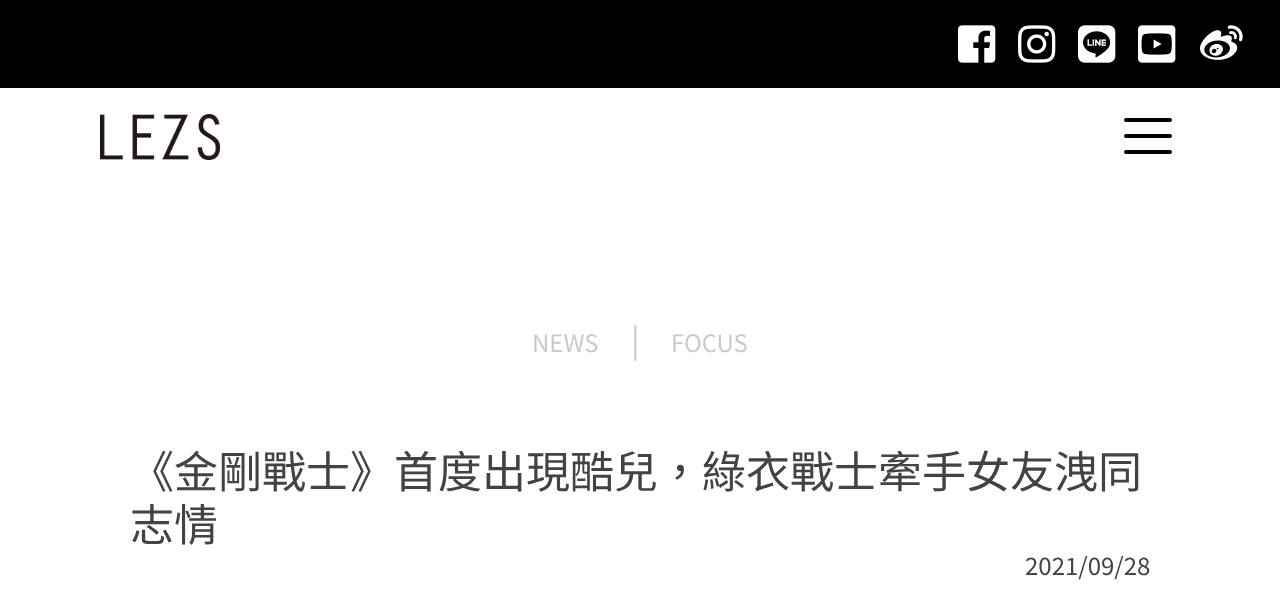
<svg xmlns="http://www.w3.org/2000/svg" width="1280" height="611">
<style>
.a{font:24px Noto Sans TC;fill:#cbcaca}
.b{font:32px Noto Sans TC;fill:#cbcaca}
.c{font:44px Noto Sans TC;fill:#434343}
.d{font:24px Noto Sans TC;fill:#434343}
</style>
<rect width="100%" height="100%" fill="#fff"/>
<path fill="#000" d="M0 0h1280v88H0z"/>
<image href="1.png" x="958" y="25" width="38" height="38"/>
<image href="2.png" x="1018" y="25" width="38" height="38"/>
<image href="3.png" x="1078" y="25" width="38" height="38"/>
<image href="4.png" x="1138" y="25" width="38" height="38"/>
<image href="5.png" x="1200" y="25" width="43" height="35"/>
<image href="6.png" x="100" y="114" width="120" height="46"/>
<path fill="none" stroke="#000" stroke-width="4" stroke-linecap="round" d="M1126 120h44m-44 16h44m-44 16h44"/>
<text class="a" x="532" y="352">NEWS</text>
<text class="b" x="631" y="352">|</text>
<text class="a" x="671" y="352">FOCUS</text>
<text class="c" x="130" y="488">《金剛戰士》首度出現酷兒，綠衣戰士牽手女友洩同</text>
<text class="c" x="130" y="541">志情</text>
<text class="d" x="1025" y="575">2021/09/28</text>
</svg>
